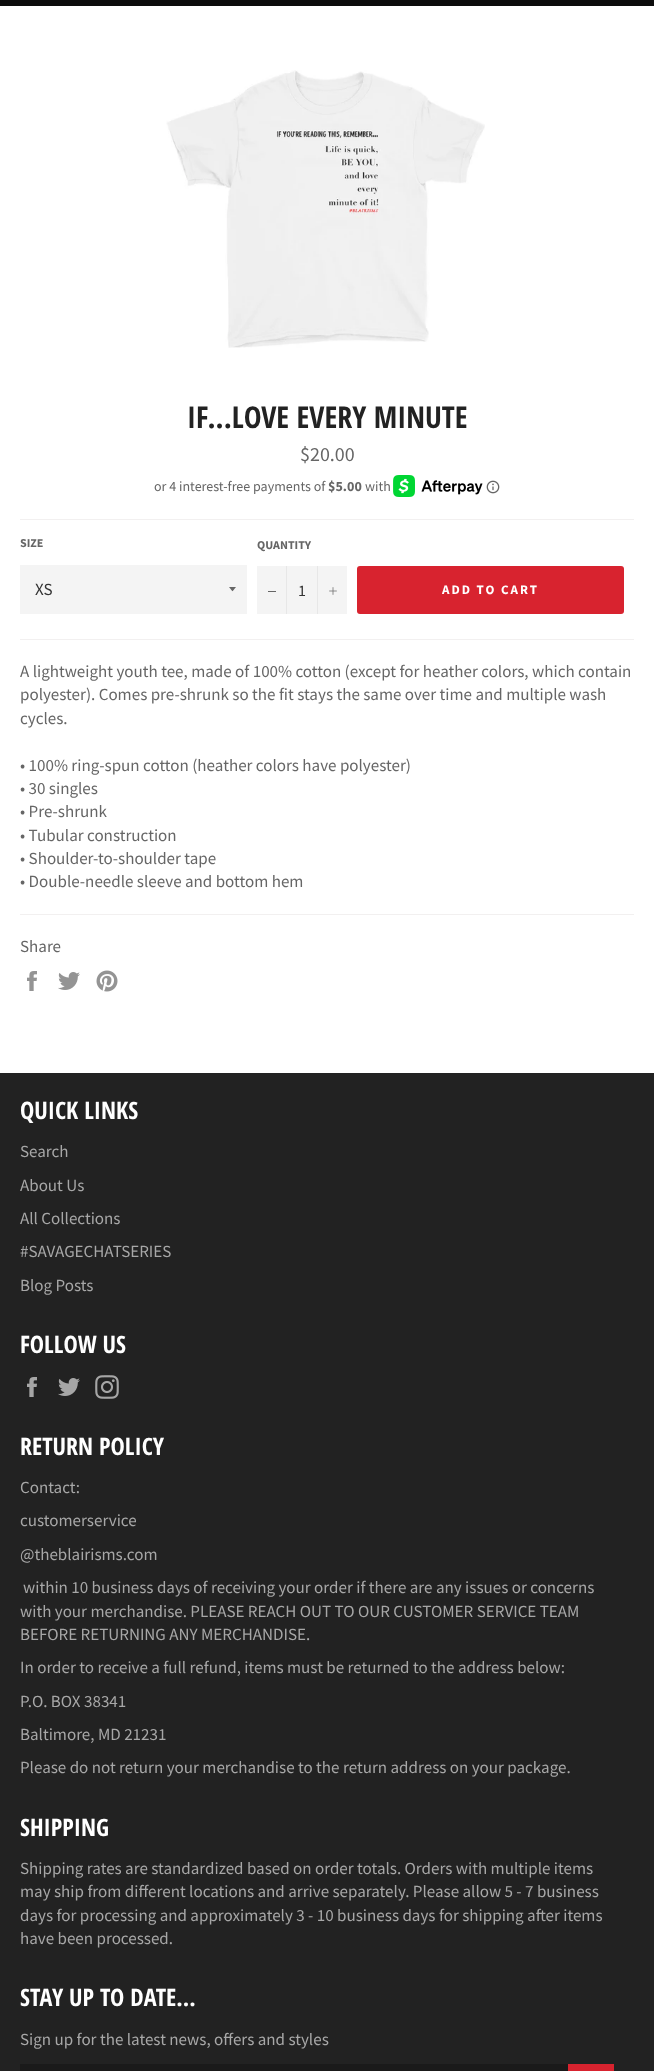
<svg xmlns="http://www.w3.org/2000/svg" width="654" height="2071">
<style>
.a{font:bold 30px Open Sans Condensed;fill:#222}
.b{font:20px Source Sans Pro;fill:#666}
.c{font:14px Source Sans Pro;fill:#666}
.d{font:bold 14px Source Sans Pro;fill:#666}
.e{font:bold 12px Source Sans Pro;fill:#666}
.f{font:17px Source Sans Pro;fill:#333}
.g{font:16px Source Sans Pro;fill:#333}
.h{font:bold 13px Source Sans Pro;letter-spacing:2px;fill:#fff}
.i{font:17px Source Sans Pro;fill:#666}
.j{font:bold 24px Open Sans Condensed;fill:#fff}
.k{font:17px Source Sans Pro;fill:#a7a7a7}
</style>
<rect width="100%" height="100%" fill="#0c0c0c"/>
<path fill="#fff" d="M0 6h654v1067H0z"/>
<image href="1.png" x="166" y="70" width="319" height="278"/>
<image href="2.png" x="393" y="475" width="90" height="22"/>
<image href="3.png" x="486" y="480" width="14" height="14"/>
<path fill="#f2f0f0" d="M20 519h614v1H20z"/>
<path fill="#f4f4f4" d="M20 565h227v49H20z"/>
<path fill="#666" d="M229 587c4.5 5.5 2.5 5.5 7 0z"/>
<path fill="#f4f4f4" d="M257 566h90v48H257z"/>
<path fill="#e7e7e7" d="M286 566h1v48H286z"/>
<path fill="#666" d="M268 591h8v1H268z"/>
<path fill="#e7e7e7" d="M317 566h1v48H317z"/>
<image href="4.png" x="329" y="587" width="8" height="8"/>
<rect fill="#d8232f" x="357" y="566" width="267" height="48" rx="3"/>
<path fill="#f2f0f0" d="M20 639h614v1H20z"/>
<path fill="#f2f0f0" d="M20 914h614v1H20z"/>
<image href="5.png" x="27" y="971" width="10" height="20"/>
<image href="6.png" x="58" y="972" width="22" height="18"/>
<image href="7.png" x="96" y="970" width="22" height="22"/>
<path fill="#222" d="M0 1073h654v998H0z"/>
<image href="8.png" x="27" y="1377" width="10" height="20"/>
<image href="9.png" x="58" y="1378" width="22" height="18"/>
<image href="10.png" x="95" y="1375" width="24" height="24"/>
<path fill="#1a1a1a" d="M20 2064h548v7H20z"/>
<path fill="#d8232f" d="M568 2064h46v7H568z"/>
<text class="a" x="187" y="428">IF...LOVE EVERY MINUTE</text>
<text class="b" x="300" y="461">$20.00</text>
<text class="c" x="154" y="491">or 4 interest-free payments of</text>
<text class="d" x="328" y="491">$5.00</text>
<text class="c" x="365" y="491">with</text>
<text class="e" x="20" y="547">SIZE</text>
<text class="f" x="35" y="595">XS</text>
<text class="e" x="257" y="549">QUANTITY</text>
<text class="g" x="298" y="596">1</text>
<text class="h" x="442" y="594">ADD TO CART</text>
<text class="i" x="20" y="677">A lightweight youth tee, made of 100% cotton (except for heather colors, which contain</text>
<text class="i" x="20" y="700">polyester). Comes pre-shrunk so the fit stays the same over time and multiple wash</text>
<text class="i" x="20" y="724">cycles.</text>
<text class="i" x="20" y="771">• 100% ring-spun cotton (heather colors have polyester)</text>
<text class="i" x="20" y="794">• 30 singles</text>
<text class="i" x="20" y="817">• Pre-shrunk</text>
<text class="i" x="20" y="841">• Tubular construction</text>
<text class="i" x="20" y="864">• Shoulder-to-shoulder tape</text>
<text class="i" x="20" y="887">• Double-needle sleeve and bottom hem</text>
<text class="i" x="20" y="952">Share</text>
<text class="j" x="20" y="1119">QUICK LINKS</text>
<text class="k" x="20" y="1157">Search</text>
<text class="k" x="20" y="1191">About Us</text>
<text class="k" x="20" y="1224">All Collections</text>
<text class="k" x="20" y="1257">#SAVAGECHATSERIES</text>
<text class="k" x="20" y="1291">Blog Posts</text>
<text class="j" x="20" y="1353">FOLLOW US</text>
<text class="j" x="20" y="1455">RETURN POLICY</text>
<text class="k" x="20" y="1493">Contact:</text>
<text class="k" x="20" y="1526">customerservice</text>
<text class="k" x="20" y="1560">@theblairisms.com</text>
<text class="k" x="23" y="1593">within 10 business days of receiving your order if there are any issues or concerns</text>
<text class="k" x="20" y="1617">with your merchandise. PLEASE REACH OUT TO OUR CUSTOMER SERVICE TEAM</text>
<text class="k" x="20" y="1640">BEFORE RETURNING ANY MERCHANDISE.</text>
<text class="k" x="20" y="1673">In order to receive a full refund, items must be returned to the address below:</text>
<text class="k" x="20" y="1707">P.O. BOX 38341</text>
<text class="k" x="20" y="1740">Baltimore, MD 21231</text>
<text class="k" x="20" y="1773">Please do not return your merchandise to the return address on your package.</text>
<text class="j" x="20" y="1836">SHIPPING</text>
<text class="k" x="20" y="1874">Shipping rates are standardized based on order totals. Orders with multiple items</text>
<text class="k" x="20" y="1897">may ship from different locations and arrive separately. Please allow 5 - 7 business</text>
<text class="k" x="20" y="1921">days for processing and approximately 3 - 10 business days for shipping after items</text>
<text class="k" x="20" y="1944">have been processed.</text>
<text class="j" x="20" y="2006">STAY UP TO DATE...</text>
<text class="k" x="20" y="2045">Sign up for the latest news, offers and styles</text>
</svg>
